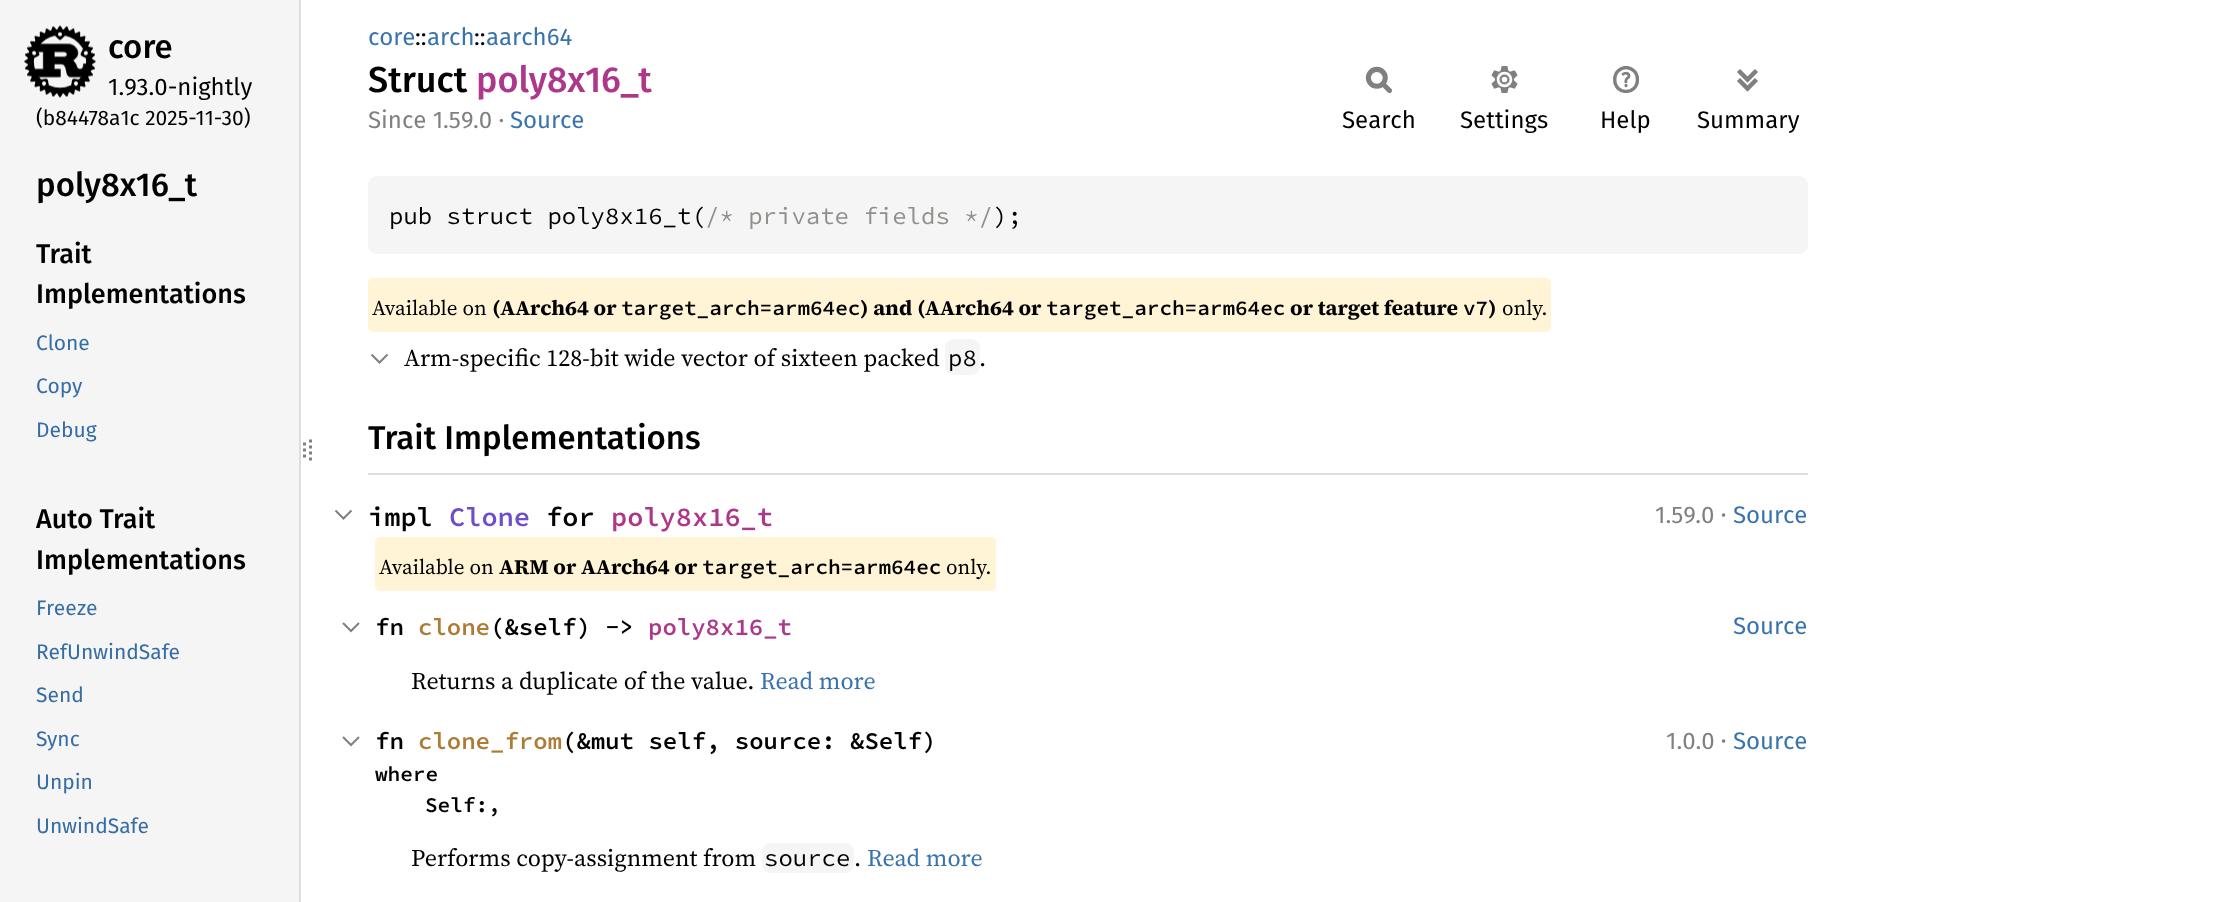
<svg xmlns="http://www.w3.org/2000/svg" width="2235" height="902">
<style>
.a{font:500 33px Fira Sans;fill:#000}
.b{font:24px Fira Sans;fill:#000}
.c{font:21px Fira Sans;fill:#000}
.d{font:500 27px Fira Sans;fill:#000}
.e{font:21px Fira Sans;fill:#356da4}
.f{font:24px Fira Sans;fill:#3873ad}
.g{font:500 36px Fira Sans;fill:#000}
.h{font:500 36px Fira Sans;fill:#ad378a}
.i{font:24px Fira Sans;fill:#808080}
.j{font:24px Source Code Pro;fill:#000}
.k{font:24px Source Code Pro;fill:#8e908c}
.l{font:21px 'Source Serif 4';fill:#000}
.m{font:bold 21px 'Source Serif 4';fill:#000}
.n{font:600 21px Source Code Pro;fill:#000}
.o{font:24px 'Source Serif 4';fill:#000}
.p{font:600 27px Source Code Pro;fill:#000}
.q{font:600 27px Source Code Pro;fill:#6e4fc9}
.r{font:600 27px Source Code Pro;fill:#ad378a}
.s{font:24px 'Source Serif 4';fill:#808080}
.t{font:600 24px Source Code Pro;fill:#000}
.u{font:600 24px Source Code Pro;fill:#ad7c37}
.v{font:600 24px Source Code Pro;fill:#ad378a}
.w{font:24px 'Source Serif 4';fill:#3873ad}
</style>
<rect width="100%" height="100%" fill="#fff"/>
<path fill="#f5f5f5" d="M0 0h299v902H0z"/>
<path fill="#ddd" d="M299 0h2v902H299z"/>
<image href="1.png" x="24" y="25" width="72" height="73"/>
<path fill="none" stroke="#808080" stroke-width="3" d="M304.5 442.5v3m0 3v3m0 3v3"/>
<path fill="none" stroke="#808080" stroke-width="3" stroke-dasharray="3 3" d="M310.5 439.5v24"/>
<image href="2.png" x="1365" y="66" width="27" height="27"/>
<image href="3.png" x="1491" y="66" width="27" height="27"/>
<image href="4.png" x="1613" y="66" width="27" height="27"/>
<image href="5.png" x="1737" y="69" width="21" height="23"/>
<rect fill="#f5f5f5" x="368" y="176" width="1440" height="78" rx="9"/>
<rect fill="#fff5d6" x="368" y="278" width="1183" height="54" rx="5"/>
<path fill="none" stroke="#808080" stroke-width="2" d="M371.5 354.5l8 8l8-8"/>
<rect fill="#f5f5f5" x="945" y="339" width="35" height="36" rx="9"/>
<path fill="#ddd" d="M368 473h1440v2H368z"/>
<path fill="none" stroke="#808080" stroke-width="2" d="M335.5 510.5l8 8l8-8"/>
<rect fill="#fff5d6" x="375" y="537" width="621" height="54" rx="5"/>
<path fill="none" stroke="#808080" stroke-width="2" d="M343 623l8 8l8-8"/>
<path fill="none" stroke="#808080" stroke-width="2" d="M343 737l8 8l8-8"/>
<rect fill="#f5f5f5" x="762" y="843" width="92" height="30" rx="9"/>
<text class="a" x="108" y="58">core</text>
<text class="b" x="108" y="95">1.93.0-nightly</text>
<text class="c" x="36" y="125">(b84478a1c 2025-11-30)</text>
<text class="a" x="36" y="196">poly8x16_t</text>
<text class="d" x="36" y="263">Trait</text>
<text class="d" x="36" y="303">Implementations</text>
<text class="e" x="36" y="350">Clone</text>
<text class="e" x="36" y="393">Copy</text>
<text class="e" x="36" y="437">Debug</text>
<text class="d" x="36" y="528">Auto Trait</text>
<text class="d" x="36" y="569">Implementations</text>
<text class="e" x="36" y="615">Freeze</text>
<text class="e" x="36" y="659">RefUnwindSafe</text>
<text class="e" x="36" y="702">Send</text>
<text class="e" x="36" y="746">Sync</text>
<text class="e" x="36" y="789">Unpin</text>
<text class="e" x="36" y="833">UnwindSafe</text>
<text class="f" x="368" y="45">core</text>
<text class="b" x="415" y="45">::</text>
<text class="f" x="427" y="45">arch</text>
<text class="b" x="474" y="45">::</text>
<text class="f" x="486" y="45">aarch64</text>
<text class="g" x="368" y="92">Struct</text>
<text class="h" x="476" y="92">poly8x16_t</text>
<text class="i" x="368" y="128">Since 1.59.0 ·</text>
<text class="f" x="510" y="128">Source</text>
<text class="b" x="1342" y="128">Search</text>
<text class="b" x="1460" y="128">Settings</text>
<text class="b" x="1600" y="128">Help</text>
<text class="b" x="1697" y="128">Summary</text>
<text class="j" x="389" y="224">pub struct poly8x16_t(</text>
<text class="k" x="705" y="224">/* private fields */</text>
<text class="j" x="993" y="224">);</text>
<text class="l" x="372" y="315">Available on</text>
<text class="m" x="492" y="315">(AArch64 or</text>
<text class="n" x="621" y="315">target_arch=arm64ec</text>
<text class="m" x="860" y="315">) and (AArch64 or</text>
<text class="n" x="1046" y="315">target_arch=arm64ec</text>
<text class="m" x="1290" y="315">or target feature</text>
<text class="n" x="1463" y="315">v7</text>
<text class="m" x="1488" y="315">)</text>
<text class="l" x="1502" y="315">only.</text>
<text class="o" x="404" y="366">Arm-specific 128-bit wide vector of sixteen packed</text>
<text class="j" x="948" y="366">p8</text>
<text class="o" x="979" y="366">.</text>
<text class="a" x="368" y="449">Trait Implementations</text>
<text class="p" x="368" y="526">impl</text>
<text class="q" x="449" y="526">Clone</text>
<text class="p" x="546" y="526">for</text>
<text class="r" x="611" y="526">poly8x16_t</text>
<text class="i" x="1655" y="523">1.59.0</text>
<text class="s" x="1720" y="523">·</text>
<text class="f" x="1733" y="523">Source</text>
<text class="l" x="379" y="574">Available on</text>
<text class="m" x="499" y="574">ARM or AArch64 or</text>
<text class="n" x="702" y="574">target_arch=arm64ec</text>
<text class="l" x="946" y="574">only.</text>
<text class="t" x="375" y="635">fn</text>
<text class="u" x="418" y="635">clone</text>
<text class="t" x="490" y="635">(&amp;self) -&gt;</text>
<text class="v" x="648" y="635">poly8x16_t</text>
<text class="f" x="1733" y="634">Source</text>
<text class="o" x="411" y="689">Returns a duplicate of the value.</text>
<text class="w" x="760" y="689">Read more</text>
<text class="t" x="375" y="749">fn</text>
<text class="u" x="418" y="749">clone_from</text>
<text class="t" x="562" y="749">(&amp;mut self, source: &amp;Self)</text>
<text class="n" x="375" y="781">where</text>
<text class="n" x="425" y="812">Self:,</text>
<text class="i" x="1666" y="749">1.0.0</text>
<text class="s" x="1720" y="749">·</text>
<text class="f" x="1733" y="749">Source</text>
<text class="o" x="411" y="866">Performs copy-assignment from</text>
<text class="j" x="764" y="866">source</text>
<text class="o" x="854" y="866">.</text>
<text class="w" x="867" y="866">Read more</text>
</svg>
